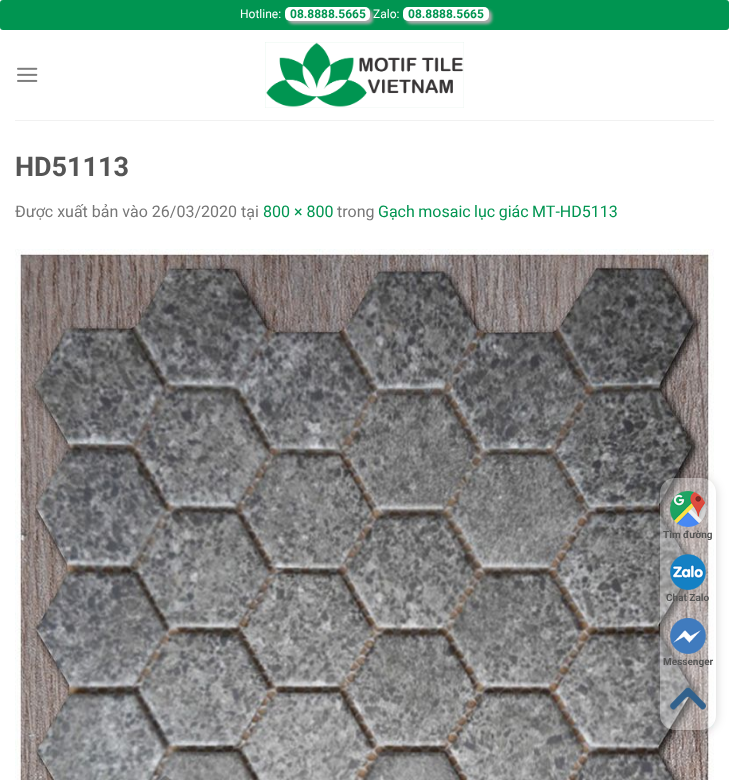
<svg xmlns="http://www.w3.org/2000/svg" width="729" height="780">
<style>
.a{font:12px Roboto;fill:#fff}
.b{font:bold 12px Roboto;fill:#009551}
.c{font:bold 27px Roboto;fill:#555}
.d{font:16px Roboto;fill:#777}
.e{font:16px Roboto;fill:#009551}
.f{font:bold 10px Roboto;fill:#555}
</style>
<defs>
<clipPath id="clip1"><path d="M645 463h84v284h-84zm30 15h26c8.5 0 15 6.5 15 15v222c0 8.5-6.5 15-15 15h-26c-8.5 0-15-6.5-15-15v-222c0-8.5 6.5-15 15-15z" clip-rule="evenodd"/></clipPath>
</defs>
<rect width="100%" height="100%" fill="#fff"/>
<rect fill="#009551" width="729" height="30" rx="3"/>
<rect fill="#aaa" filter="blur(1.5px)" x="288" y="10" width="85" height="14" rx="5"/>
<rect fill="#fff" x="285" y="7" width="85" height="14" rx="5"/>
<rect fill="#aaa" filter="blur(1.5px)" x="406" y="10" width="86" height="14" rx="5"/>
<rect fill="#fff" x="403" y="7" width="86" height="14" rx="5"/>
<image href="1.png" x="17" y="67" width="21" height="15"/>
<image href="2.png" x="265" y="42" width="199" height="66"/>
<path fill="#f1f1f1" d="M15 120h699v1H15z"/>
<image href="3.png" x="15" y="249" width="699" height="531"/>
<g clip-path="url(#clip1)">
<rect fill="#00000026" filter="blur(5px)" x="661" y="479" width="56" height="252" rx="15"/>
</g>
<rect fill="#ffffff52" x="660" y="478" width="56" height="252" rx="15"/>
<image href="4.png" x="670" y="491" width="36" height="36"/>
<image href="5.png" x="670" y="554" width="36" height="36"/>
<image href="6.png" x="670" y="618" width="36" height="36"/>
<image href="7.png" x="670" y="687" width="36" height="23"/>
<text class="a" x="240" y="18">Hotline:</text>
<text class="b" x="290" y="18">08.8888.5665</text>
<text class="a" x="373" y="18">Zalo:</text>
<text class="b" x="408" y="18">08.8888.5665</text>
<text class="c" x="15" y="176">HD51113</text>
<text class="d" x="15" y="217">Được xuất bản vào 26/03/2020 tại</text>
<text class="e" x="263" y="217">800 × 800</text>
<text class="d" x="337" y="217">trong</text>
<text class="e" x="378" y="217" word-spacing="-0.5">Gạch mosaic lục giác MT-HD5113</text>
<text class="f" x="663" y="538">Tìm đường</text>
<text class="f" x="666" y="601">Chat Zalo</text>
<text class="f" x="663" y="665">Messenger</text>
</svg>
